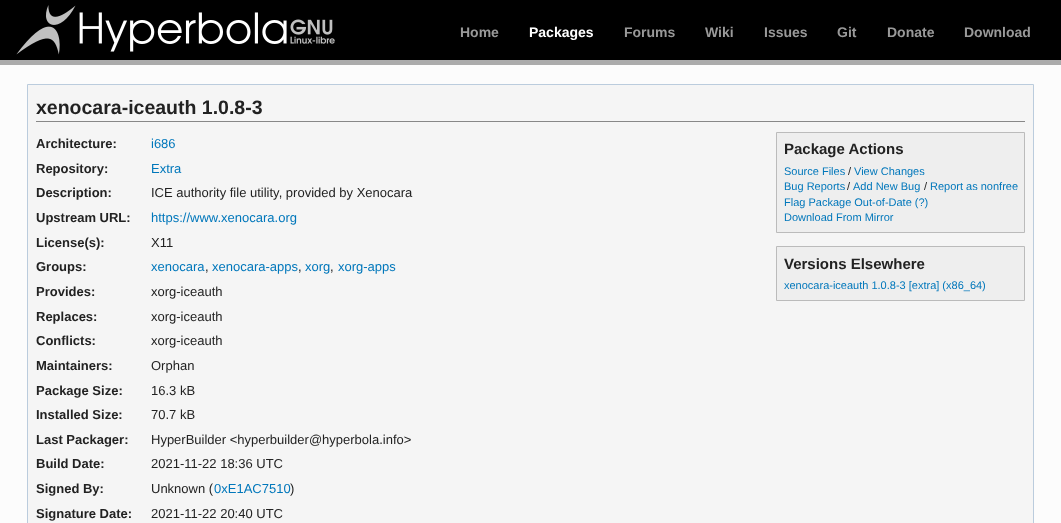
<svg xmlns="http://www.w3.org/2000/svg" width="1061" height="523">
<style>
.a{font:bold 14px Liberation Sans;fill:#999}
.b{font:bold 14px Liberation Sans;fill:#fff}
.c{font:bold 19.5px Liberation Sans;fill:#222}
.d{font:bold 13px Liberation Sans;fill:#222}
.e{font:13px Liberation Sans;fill:#07b}
.f{font:13px Liberation Sans;fill:#222}
.g{font:bold 15px Liberation Sans;fill:#222}
.h{font:11px Liberation Sans;fill:#07b}
.i{font:11px Liberation Sans;fill:#222}
</style>
<rect width="100%" height="100%" fill="#fcfcfc"/>
<path fill="#000" d="M0 0h1061v60H0z"/>
<path fill="#ababab" d="M0 60h1061v5H0z"/>
<image href="1.png" x="16" y="5" width="319" height="50"/>
<path fill="#f5f5f5" stroke="#bcd" d="M27.5 84.5h1006v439H27.5z"/>
<path fill="#888" d="M36 121h989v1H36z"/>
<path fill="#eee" stroke="#bbb" d="M776.5 132.5h248v100H776.5z"/>
<path fill="#eee" stroke="#bbb" d="M776.5 246.5h248v54H776.5z"/>
<text class="a" x="460" y="37">Home</text>
<text class="b" x="529" y="37">Packages</text>
<text class="a" x="624" y="37">Forums</text>
<text class="a" x="705" y="37">Wiki</text>
<text class="a" x="764" y="37">Issues</text>
<text class="a" x="837" y="37">Git</text>
<text class="a" x="887" y="37">Donate</text>
<text class="a" x="964" y="37">Download</text>
<text class="c" x="36" y="114">xenocara-iceauth 1.0.8-3</text>
<text class="d" x="36" y="148">Architecture:</text>
<text class="e" x="151" y="148">i686</text>
<text class="d" x="36" y="173">Repository:</text>
<text class="e" x="151" y="173">Extra</text>
<text class="d" x="36" y="197">Description:</text>
<text class="f" x="151" y="197">ICE authority file utility, provided by Xenocara</text>
<text class="d" x="36" y="222">Upstream URL:</text>
<text class="e" x="151" y="222">https://www.xenocara.org</text>
<text class="d" x="36" y="247">License(s):</text>
<text class="f" x="151" y="247">X11</text>
<text class="d" x="36" y="271">Groups:</text>
<text class="e" x="151" y="271">xenocara</text>
<text class="f" x="205" y="271">,</text>
<text class="e" x="212" y="271">xenocara-apps</text>
<text class="f" x="298" y="271">,</text>
<text class="e" x="305" y="271">xorg</text>
<text class="f" x="330" y="271">,</text>
<text class="e" x="338" y="271">xorg-apps</text>
<text class="d" x="36" y="296">Provides:</text>
<text class="f" x="151" y="296">xorg-iceauth</text>
<text class="d" x="36" y="321">Replaces:</text>
<text class="f" x="151" y="321">xorg-iceauth</text>
<text class="d" x="36" y="345">Conflicts:</text>
<text class="f" x="151" y="345">xorg-iceauth</text>
<text class="d" x="36" y="370">Maintainers:</text>
<text class="f" x="151" y="370">Orphan</text>
<text class="d" x="36" y="395">Package Size:</text>
<text class="f" x="151" y="395">16.3 kB</text>
<text class="d" x="36" y="419">Installed Size:</text>
<text class="f" x="151" y="419">70.7 kB</text>
<text class="d" x="36" y="444">Last Packager:</text>
<text class="f" x="151" y="444">HyperBuilder &lt;hyperbuilder@hyperbola.info&gt;</text>
<text class="d" x="36" y="468">Build Date:</text>
<text class="f" x="151" y="468">2021-11-22 18:36 UTC</text>
<text class="d" x="36" y="493">Signed By:</text>
<text class="f" x="151" y="493">Unknown (</text>
<text class="e" x="214" y="493">0xE1AC7510</text>
<text class="f" x="290" y="493">)</text>
<text class="d" x="36" y="518">Signature Date:</text>
<text class="f" x="151" y="518">2021-11-22 20:40 UTC</text>
<text class="g" x="784" y="154">Package Actions</text>
<text class="h" x="784" y="175">Source Files</text>
<text class="i" x="848" y="175">/</text>
<text class="h" x="854" y="175">View Changes</text>
<text class="h" x="784" y="190">Bug Reports</text>
<text class="i" x="847" y="190">/</text>
<text class="h" x="853" y="190">Add New Bug</text>
<text class="i" x="924" y="190">/</text>
<text class="h" x="930" y="190">Report as nonfree</text>
<text class="h" x="784" y="206">Flag Package Out-of-Date (?)</text>
<text class="h" x="784" y="221">Download From Mirror</text>
<text class="g" x="784" y="269">Versions Elsewhere</text>
<text class="h" x="784" y="289">xenocara-iceauth 1.0.8-3 [extra] (x86_64)</text>
</svg>
